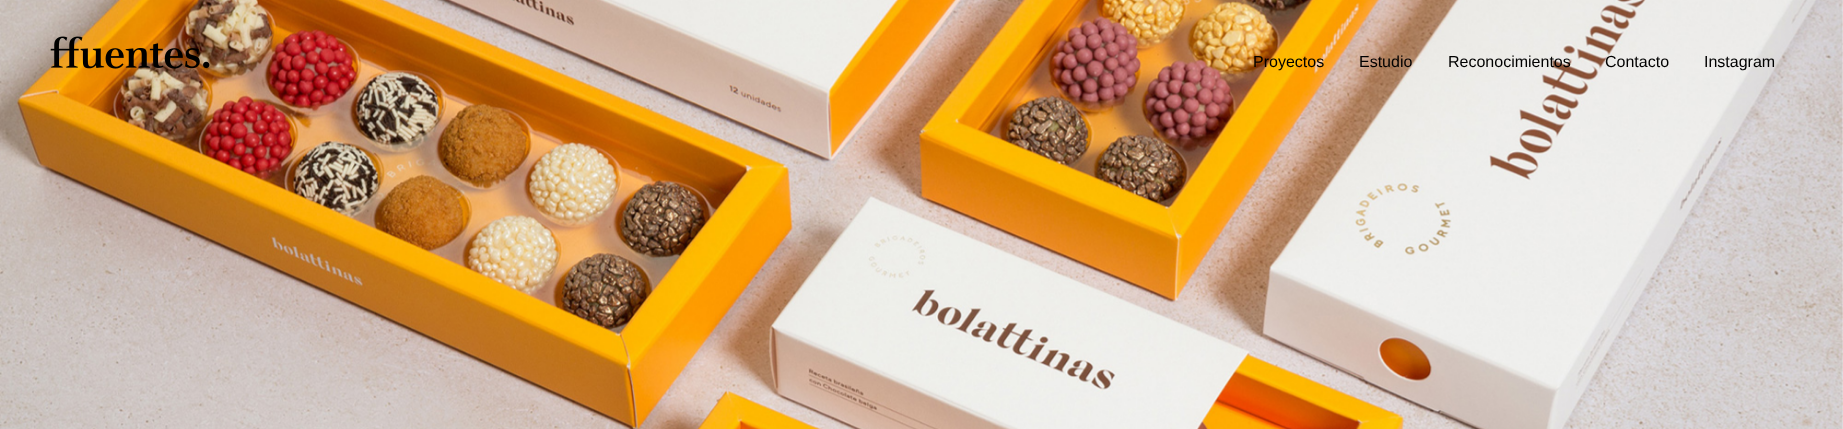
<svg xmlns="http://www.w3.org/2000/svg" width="1843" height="429">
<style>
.a{font:16px Liberation Sans;fill:#000}
</style>
<rect width="100%" height="100%" fill="#fff"/>
<image href="1.png" x="0" y="0" width="1843" height="429"/>
<image href="2.png" x="50" y="36" width="160" height="33"/>
<text class="a" x="1253" y="67">Proyectos</text>
<text class="a" x="1359" y="67">Estudio</text>
<text class="a" x="1448" y="67">Reconocimientos</text>
<text class="a" x="1605" y="67">Contacto</text>
<text class="a" x="1704" y="67">Instagram</text>
</svg>
